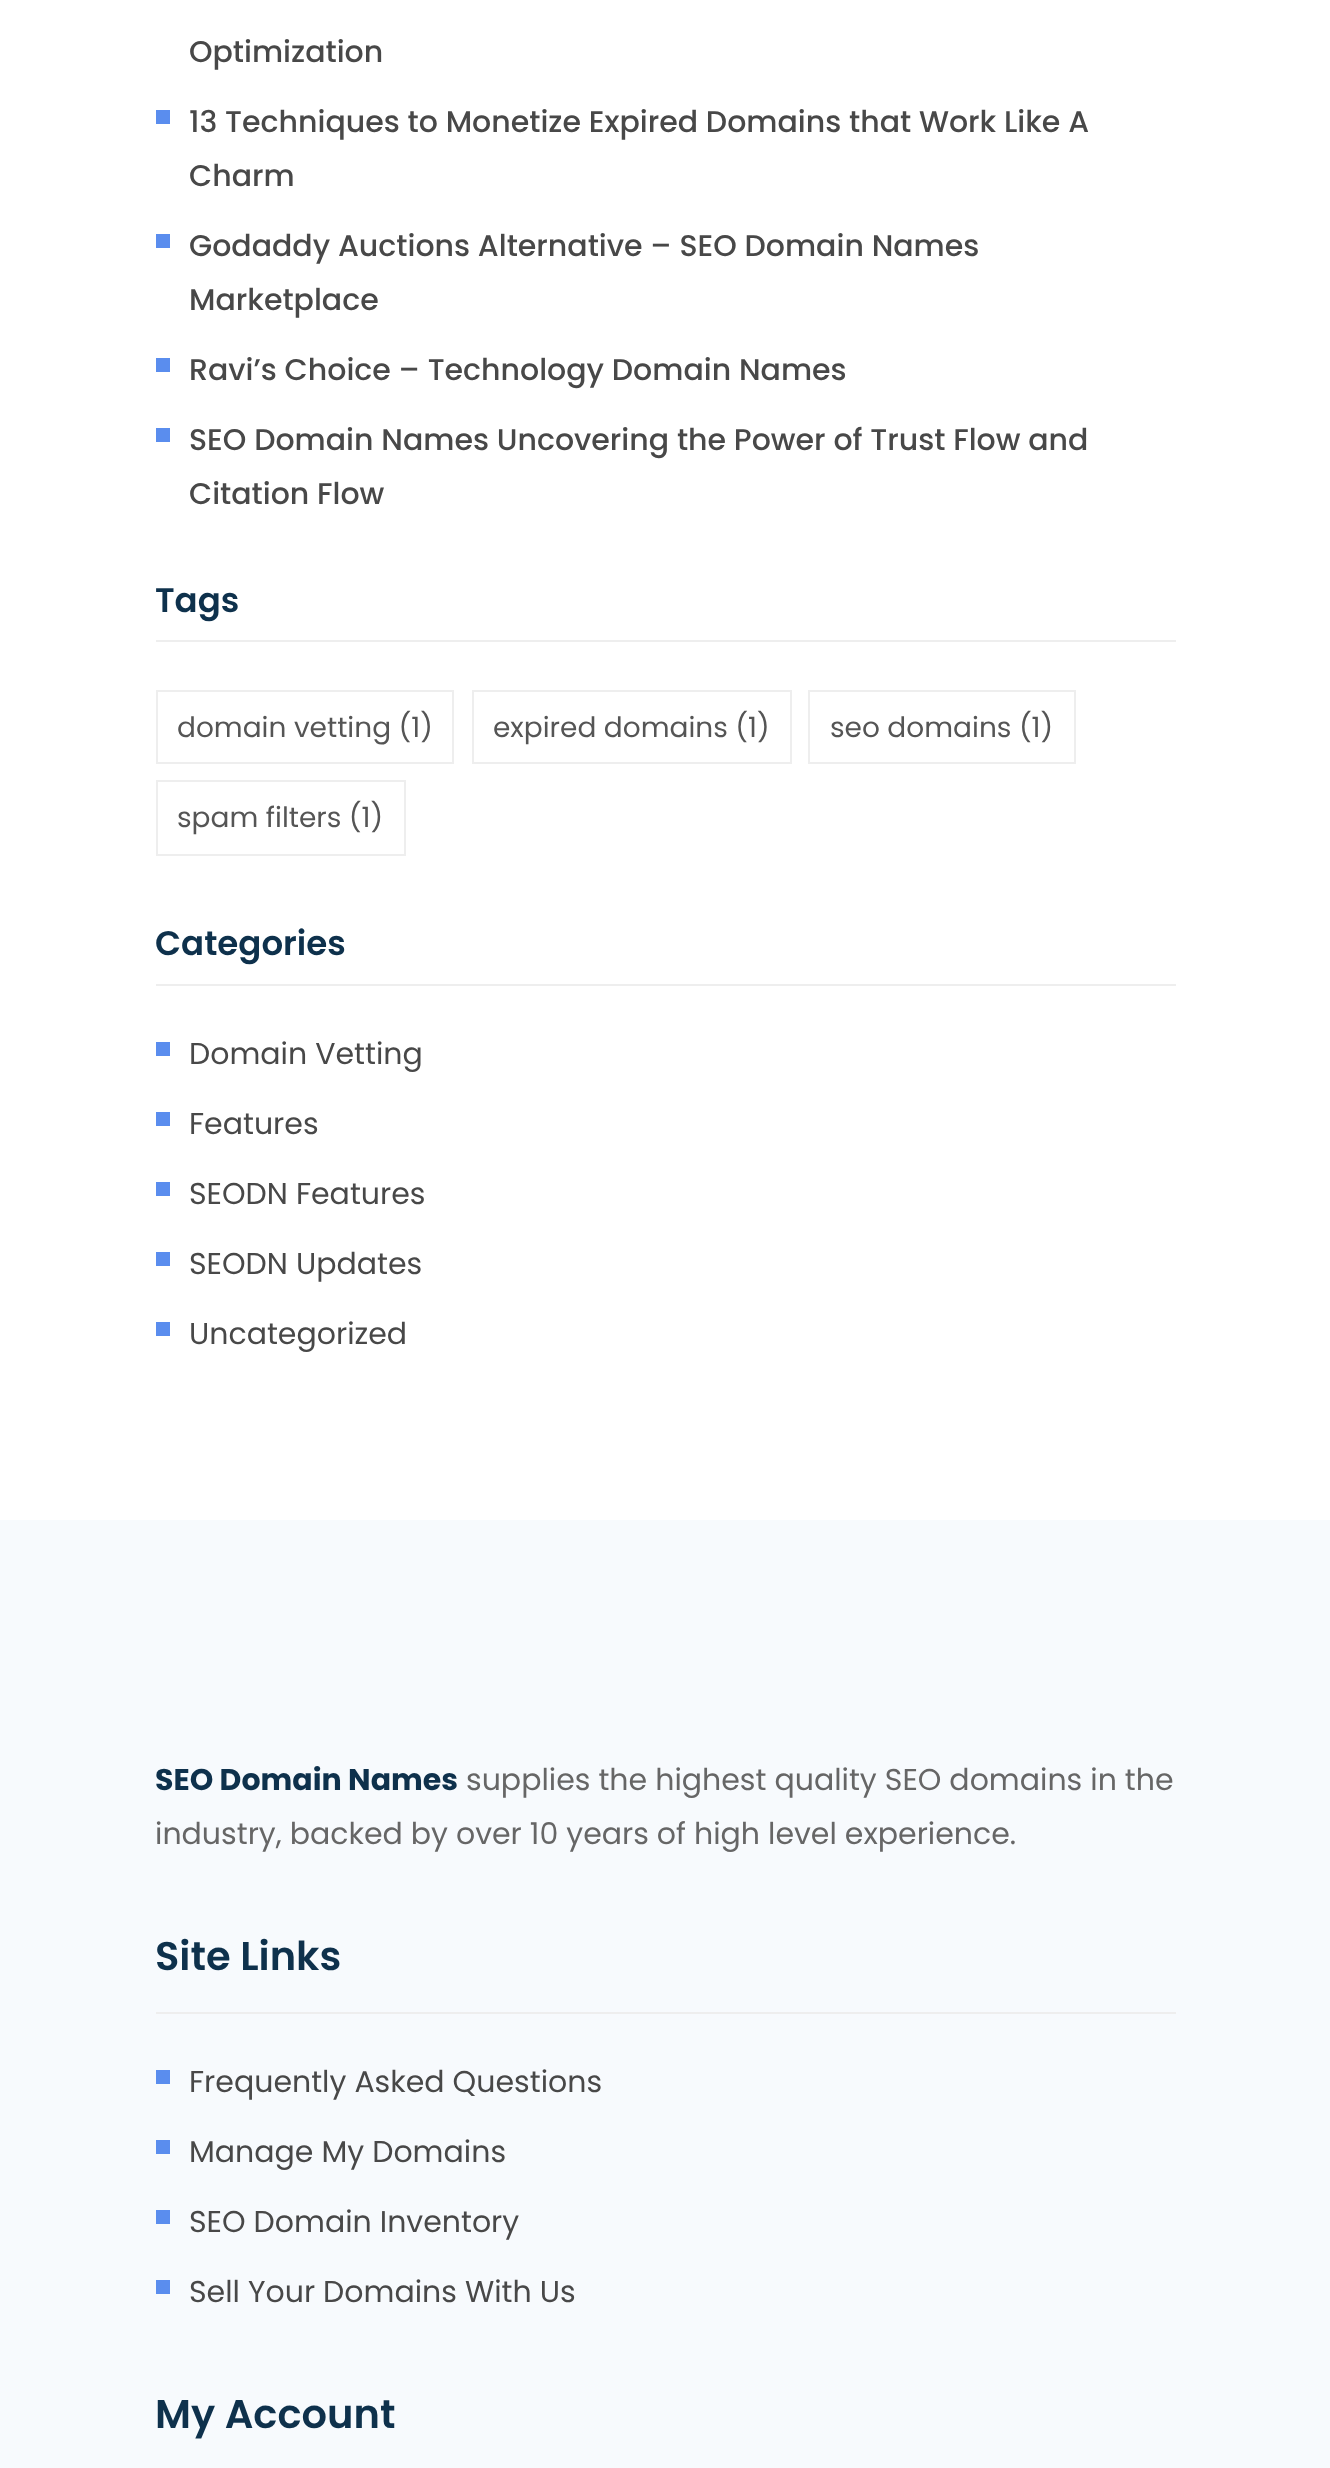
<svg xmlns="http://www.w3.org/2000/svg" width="1330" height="2468">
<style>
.a{font:500 30px Poppins;fill:#484848}
.b{font:600 34px Poppins;fill:#0e314c}
.c{font:28px Poppins;fill:#555}
.d{font:30px Poppins;fill:#484848}
.e{font:bold 30px Poppins;fill:#0e314c}
.f{font:30px Poppins;fill:#666}
.g{font:600 40px Poppins;fill:#0e314c}
</style>
<rect width="100%" height="100%" fill="#fff"/>
<path fill="#5a8dee" d="M156 110h14v14H156z"/>
<path fill="#5a8dee" d="M156 234h14v14H156z"/>
<path fill="#5a8dee" d="M156 358h14v14H156z"/>
<path fill="#5a8dee" d="M156 428h14v14H156z"/>
<path fill="#eee" d="M156 640h1020v2H156z"/>
<path fill="none" stroke="#eee" stroke-width="2" d="M157 691h296v72H157z"/>
<path fill="none" stroke="#eee" stroke-width="2" d="M473 691h318v72H473z"/>
<path fill="none" stroke="#eee" stroke-width="2" d="M809 691h266v72H809z"/>
<path fill="none" stroke="#eee" stroke-width="2" d="M157 781h248v74H157z"/>
<path fill="#eee" d="M156 984h1020v2H156z"/>
<path fill="#5a8dee" d="M156 1042h14v14H156z"/>
<path fill="#5a8dee" d="M156 1112h14v14H156z"/>
<path fill="#5a8dee" d="M156 1182h14v14H156z"/>
<path fill="#5a8dee" d="M156 1252h14v14H156z"/>
<path fill="#5a8dee" d="M156 1322h14v14H156z"/>
<path fill="#f7fafd" d="M0 1520h1330v948H0z"/>
<path fill="#eee" d="M156 2012h1020v2H156z"/>
<path fill="#5a8dee" d="M156 2070h14v14H156z"/>
<path fill="#5a8dee" d="M156 2140h14v14H156z"/>
<path fill="#5a8dee" d="M156 2210h14v14H156z"/>
<path fill="#5a8dee" d="M156 2280h14v14H156z"/>
<text class="a" x="189" y="62">Optimization</text>
<text class="a" x="189" y="132">13 Techniques to Monetize Expired Domains that Work Like A</text>
<text class="a" x="189" y="186">Charm</text>
<text class="a" x="189" y="256">Godaddy Auctions Alternative – SEO Domain Names</text>
<text class="a" x="189" y="310">Marketplace</text>
<text class="a" x="189" y="380">Ravi’s Choice – Technology Domain Names</text>
<text class="a" x="189" y="450">SEO Domain Names Uncovering the Power of Trust Flow and</text>
<text class="a" x="189" y="504">Citation Flow</text>
<text class="b" x="155" y="612">Tags</text>
<text class="c" x="177" y="737">domain vetting (1)</text>
<text class="c" x="493" y="737">expired domains (1)</text>
<text class="c" x="830" y="737">seo domains (1)</text>
<text class="c" x="177" y="827">spam filters (1)</text>
<text class="b" x="155" y="955">Categories</text>
<text class="d" x="189" y="1064">Domain Vetting</text>
<text class="d" x="189" y="1134">Features</text>
<text class="d" x="189" y="1204">SEODN Features</text>
<text class="d" x="189" y="1274">SEODN Updates</text>
<text class="d" x="189" y="1344">Uncategorized</text>
<text class="e" x="155" y="1790">SEO Domain Names</text>
<text class="f" x="466" y="1790">supplies the highest quality SEO domains in the</text>
<text class="f" x="155" y="1844">industry, backed by over 10 years of high level experience.</text>
<text class="g" x="155" y="1970">Site Links</text>
<text class="d" x="189" y="2092">Frequently Asked Questions</text>
<text class="d" x="189" y="2162">Manage My Domains</text>
<text class="d" x="189" y="2232">SEO Domain Inventory</text>
<text class="d" x="189" y="2302">Sell Your Domains With Us</text>
<text class="g" x="155" y="2428">My Account</text>
</svg>
